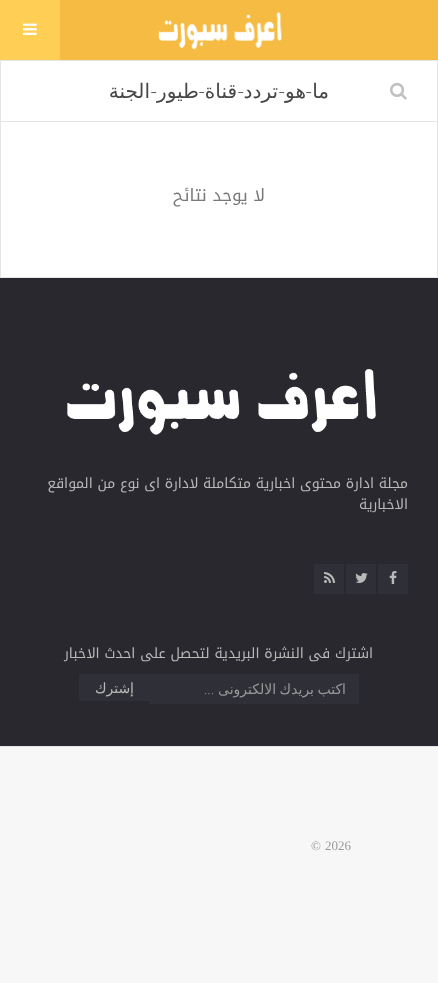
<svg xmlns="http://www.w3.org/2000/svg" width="438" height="983">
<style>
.a{font:20px DejaVu Sans;direction:rtl;fill:#474747}
.b{font:300 20px Open Sans;direction:rtl;fill:#474747}
.c{font:17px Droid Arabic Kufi;direction:rtl;fill:#787878}
.d{font:14px Droid Arabic Kufi;direction:rtl;fill:#b9b9b9}
.e{font:14px DejaVu Sans;direction:rtl;fill:#999}
.f{font:300 14px Open Sans;direction:rtl;fill:#999}
.g{font:14px DejaVu Sans;direction:rtl;fill:#b9b9b9}
.h{font:13px Liberation Serif;fill:#999}
</style>
<rect width="100%" height="100%" fill="#f7f7f7"/>
<path fill="#f6bb43" d="M60 0h378v60H60z"/>
<image href="1.png" x="158" y="12" width="124" height="38"/>
<path fill="#ffce55" d="M0 0h60v60H0z"/>
<image href="2.png" x="23" y="23" width="14" height="12"/>
<path fill="#fff" stroke="#e5e5e5" d="M0.5 60.5h437v217H0.5z"/>
<path fill="#e5e5e5" d="M1 121h436v1H1z"/>
<image href="3.png" x="390" y="82" width="17" height="18"/>
<path fill="#28282e" d="M0 278h438v468H0z"/>
<path fill="#e5e5e5" d="M0 746h438v1H0z"/>
<image href="4.png" x="67" y="369" width="309" height="66"/>
<path fill="#2f2f37" d="M378 564h30v30H378z"/>
<image href="5.png" x="389" y="571" width="8" height="13"/>
<path fill="#2f2f37" d="M346 564h30v30H346z"/>
<image href="6.png" x="355" y="573" width="13" height="10"/>
<path fill="#2f2f37" d="M314 564h30v30H314z"/>
<image href="7.png" x="324" y="572" width="11" height="11"/>
<path fill="#2f2f37" d="M149 674h210v30H149z"/>
<path fill="#2f2f37" d="M79 674h70v27H79z"/>
<text class="a" x="329" y="98">ما</text>
<text class="b" x="312" y="98">-</text>
<text class="b" x="285" y="98">-</text>
<text class="a" x="306" y="98">هو</text>
<text class="a" x="278" y="98">تردد</text>
<text class="b" x="244" y="98">-</text>
<text class="a" x="237" y="98">قناة</text>
<text class="b" x="205" y="98">-</text>
<text class="b" x="157" y="98">-</text>
<text class="a" x="199" y="98">طيور</text>
<text class="a" x="150" y="98">الجنة</text>
<text class="c" x="265" y="201">لا يوجد نتائح</text>
<text class="d" x="408" y="488">مجلة ادارة محتوى اخبارية متكاملة لادارة اى نوع من المواقع</text>
<text class="d" x="408" y="509">الاخبارية</text>
<text class="d" x="373" y="658">اشترك فى النشرة البريدية لتحصل على احدث الاخبار</text>
<text class="e" x="346" y="694" word-spacing="-1">اكتب بريدك الالكترونى</text>
<text class="f" x="214" y="694">...</text>
<text class="g" x="134" y="693">إشترك</text>
<text class="h" x="325" y="850">2026</text>
<text class="h" x="311" y="850">©</text>
</svg>
